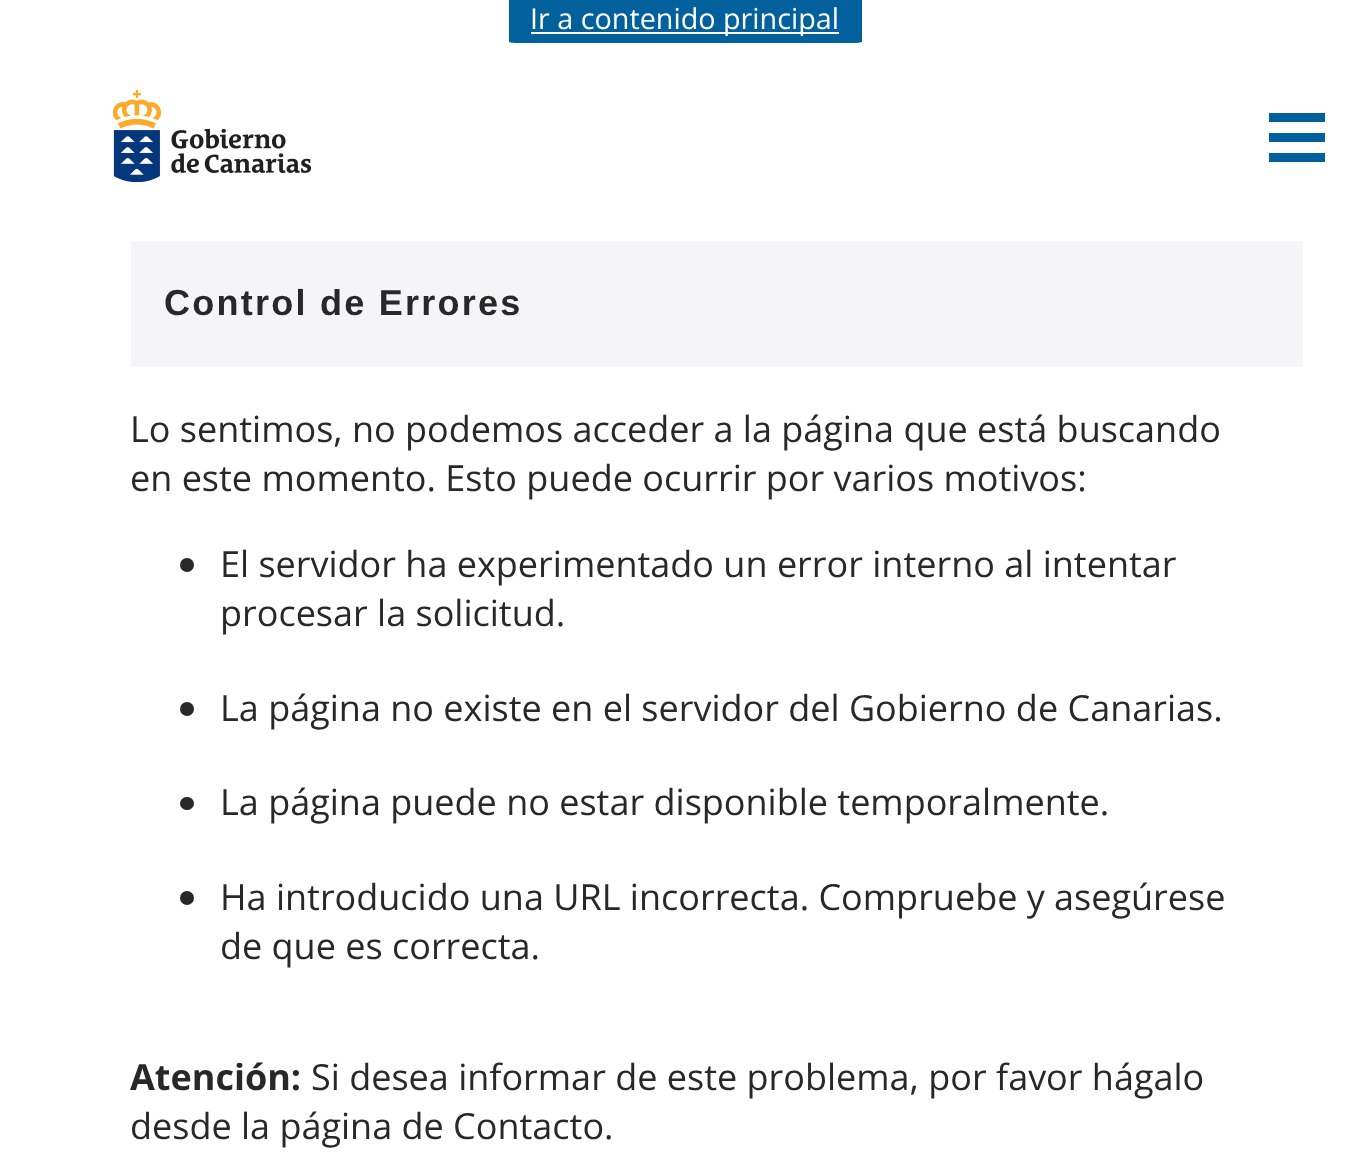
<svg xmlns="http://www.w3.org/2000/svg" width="1369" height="1167">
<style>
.a{font:28.75px Open Sans;fill:#fff}
.b{font:bold 36px Liberation Sans;letter-spacing:2.25px;fill:#282828}
.c{font:36px Open Sans;fill:#282828}
.d{font:bold 36px Open Sans;fill:#282828}
</style>
<rect width="100%" height="100%" fill="#fff"/>
<path fill="#02619c" d="M516-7h339c4 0 7 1 7 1v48c0 0-3 1-7 1h-339c-4 0-7-1-7-1v-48c0 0 3-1 7-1z"/>
<path fill="#fff" d="M531 32h308v2H531z"/>
<image href="1.png" x="113" y="90" width="199" height="92"/>
<path fill="#02619c" d="M1269 113h56v9H1269z"/>
<path fill="#02619c" d="M1269 133h56v9H1269z"/>
<path fill="#02619c" d="M1269 153h56v9H1269z"/>
<path fill="#f5f5f7" d="M131 241h1172v126H131z"/>
<circle fill="#282828" cx="187" cy="565" r="7"/>
<circle fill="#282828" cx="187" cy="709" r="7"/>
<rect fill="#282828" x="180" y="797" width="14" height="13" rx="6.5"/>
<circle fill="#282828" cx="187" cy="898" r="7"/>
<text class="a" x="530" y="29">Ir a contenido principal</text>
<text class="b" x="164" y="315">Control de Errores</text>
<text class="c" x="130" y="442">Lo sentimos, no podemos acceder a la página que está buscando</text>
<text class="c" x="130" y="491">en este momento. Esto puede ocurrir por varios motivos:</text>
<text class="c" x="220" y="577">El servidor ha experimentado un error interno al intentar</text>
<text class="c" x="220" y="626">procesar la solicitud.</text>
<text class="c" x="220" y="721">La página no existe en el servidor del Gobierno de Canarias.</text>
<text class="c" x="220" y="815">La página puede no estar disponible temporalmente.</text>
<text class="c" x="220" y="910">Ha introducido una URL incorrecta. Compruebe y asegúrese</text>
<text class="c" x="220" y="959">de que es correcta.</text>
<text class="d" x="130" y="1090">Atención:</text>
<text class="c" x="311" y="1090">Si desea informar de este problema, por favor hágalo</text>
<text class="c" x="130" y="1139">desde la página de Contacto.</text>
</svg>
